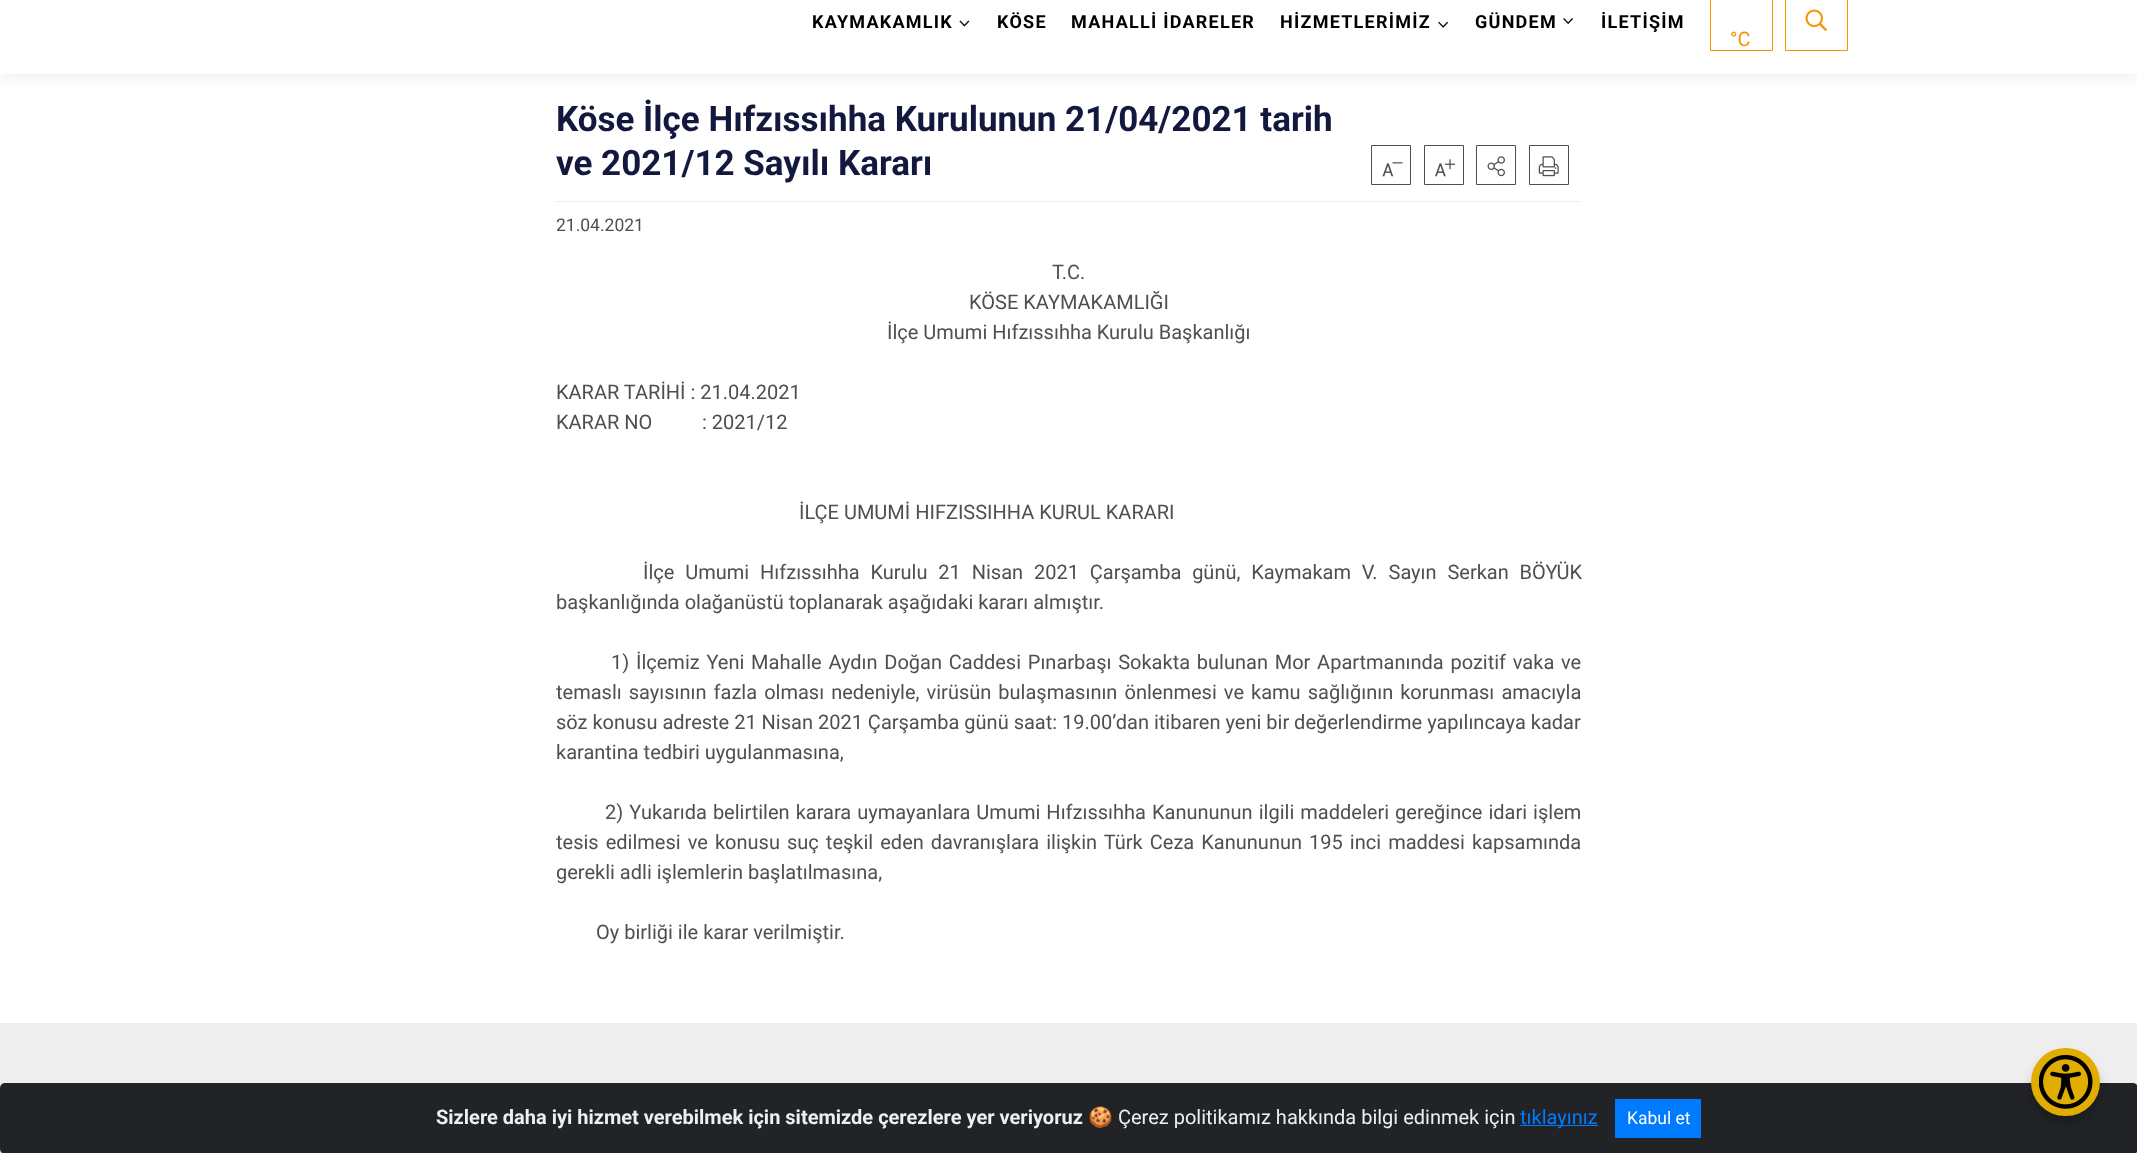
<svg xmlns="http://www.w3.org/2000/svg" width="2137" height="1153">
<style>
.a{font:bold 18px Roboto;letter-spacing:1.25px;fill:#000}
.b{font:20px Roboto;fill:#f59300}
.c{font:bold 35px Roboto;fill:#13183e}
.d{font:17.5px Roboto;fill:#4f4f4f}
.e{font:20px Roboto;fill:#4f4f4f}
.f{font:bold 20px Roboto;fill:#ecf0f1}
.g{font:20px Noto Color Emoji;fill:#ecf0f1}
.h{font:20px Roboto;fill:#ecf0f1}
.i{font:20px Roboto;fill:#007bff}
.j{font:17.5px Roboto;fill:#fff}
</style>
<rect width="100%" height="100%" fill="#fff"/>
<path fill="#eeeeee9e" filter="blur(6px)" d="M0 -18h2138v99H0z"/>
<path fill="#fff" d="M0 0h2137v74H0z"/>
<image href="1.png" x="959" y="20" width="11" height="7"/>
<image href="2.png" x="1438" y="21" width="10" height="7"/>
<image href="3.png" x="1563" y="18" width="10" height="6"/>
<path fill="none" stroke="#f59300" d="M1710.5 -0.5h62v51H1710.5z"/>
<path fill="none" stroke="#f59300" d="M1785.5 -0.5h62v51H1785.5z"/>
<image href="4.png" x="1805" y="9" width="22" height="22"/>
<path fill="#eee" d="M556 201h1025v1H556z"/>
<path fill="none" stroke="#4f4f4f" d="M1371.5 145.5h39v39H1371.5z"/>
<image href="5.png" x="1382" y="162" width="21" height="15"/>
<path fill="none" stroke="#4f4f4f" d="M1424.5 145.5h39v39H1424.5z"/>
<image href="6.png" x="1435" y="159" width="20" height="18"/>
<path fill="none" stroke="#4f4f4f" d="M1476.5 145.5h39v39H1476.5z"/>
<image href="7.png" x="1487" y="156" width="18" height="21"/>
<path fill="none" stroke="#4f4f4f" d="M1529.5 145.5h39v39H1529.5z"/>
<image href="8.png" x="1538" y="156" width="21" height="21"/>
<path fill="#eee" d="M0 1023h2137v130H0z"/>
<rect fill="#212327" y="1083" width="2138" height="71" rx="5"/>
<path fill="#007bff" d="M1520 1125h78v1H1520z"/>
<path fill="#007bff" d="M1615 1099h86v39H1615z"/>
<rect fill="#00000033" filter="blur(5px)" x="2031" y="1055" width="69" height="69" rx="34.5"/>
<rect fill="#e1ad01" x="2031" y="1048" width="69" height="68" rx="34"/>
<image href="9.png" x="2039" y="1055" width="54" height="54"/>
<text class="a" x="812" y="28">KAYMAKAMLIK</text>
<text class="a" x="997" y="28">KÖSE</text>
<text class="a" x="1071" y="28">MAHALLİ İDARELER</text>
<text class="a" x="1280" y="28">HİZMETLERİMİZ</text>
<text class="a" x="1475" y="28">GÜNDEM</text>
<text class="a" x="1601" y="28">İLETİŞİM</text>
<text class="b" x="1730" y="46">°C</text>
<text class="c" x="556" y="131">Köse İlçe Hıfzıssıhha Kurulunun 21/04/2021 tarih</text>
<text class="c" x="556" y="175">ve 2021/12 Sayılı Kararı</text>
<text class="d" x="556" y="231">21.04.2021</text>
<text class="e" x="1052" y="279">T.C.</text>
<text class="e" x="969" y="309">KÖSE KAYMAKAMLIĞI</text>
<text class="e" x="887" y="339">İlçe Umumi Hıfzıssıhha Kurulu Başkanlığı</text>
<text class="e" x="556" y="399">KARAR TARİHİ : 21.04.2021</text>
<text class="e" xml:space="preserve" x="556" y="429">KARAR NO          : 2021/12</text>
<text class="e" x="799" y="519">İLÇE UMUMİ HIFZISSIHHA KURUL KARARI</text>
<text class="e" x="643" y="579" word-spacing="5.9">İlçe Umumi Hıfzıssıhha Kurulu 21 Nisan 2021 Çarşamba günü, Kaymakam V. Sayın Serkan BÖYÜK</text>
<text class="e" x="556" y="609">başkanlığında olağanüstü toplanarak aşağıdaki kararı almıştır.</text>
<text class="e" x="611" y="669" word-spacing="1.8">1) İlçemiz Yeni Mahalle Aydın Doğan Caddesi Pınarbaşı Sokakta bulunan Mor Apartmanında pozitif vaka ve</text>
<text class="e" x="556" y="699" word-spacing="2.1">temaslı sayısının fazla olması nedeniyle, virüsün bulaşmasının önlenmesi ve kamu sağlığının korunması amacıyla</text>
<text class="e" x="556" y="729">söz konusu adreste 21 Nisan 2021 Çarşamba günü saat: 19.00’dan itibaren yeni bir değerlendirme yapılıncaya kadar</text>
<text class="e" x="556" y="759">karantina tedbiri uygulanmasına,</text>
<text class="e" x="605" y="819" word-spacing="1.1">2) Yukarıda belirtilen karara uymayanlara Umumi Hıfzıssıhha Kanununun ilgili maddeleri gereğince idari işlem</text>
<text class="e" x="556" y="849" word-spacing="2.1">tesis edilmesi ve konusu suç teşkil eden davranışlara ilişkin Türk Ceza Kanununun 195 inci maddesi kapsamında</text>
<text class="e" x="556" y="879">gerekli adli işlemlerin başlatılmasına,</text>
<text class="e" x="596" y="939">Oy birliği ile karar verilmiştir.</text>
<text class="f" x="436" y="1124">Sizlere daha iyi hizmet verebilmek için sitemizde çerezlere yer veriyoruz</text>
<text class="g" x="1088" y="1124">🍪</text>
<text class="h" x="1118" y="1124">Çerez politikamız hakkında bilgi edinmek için</text>
<text class="i" x="1520" y="1124">tıklayınız</text>
<text class="j" x="1627" y="1124">Kabul et</text>
</svg>
